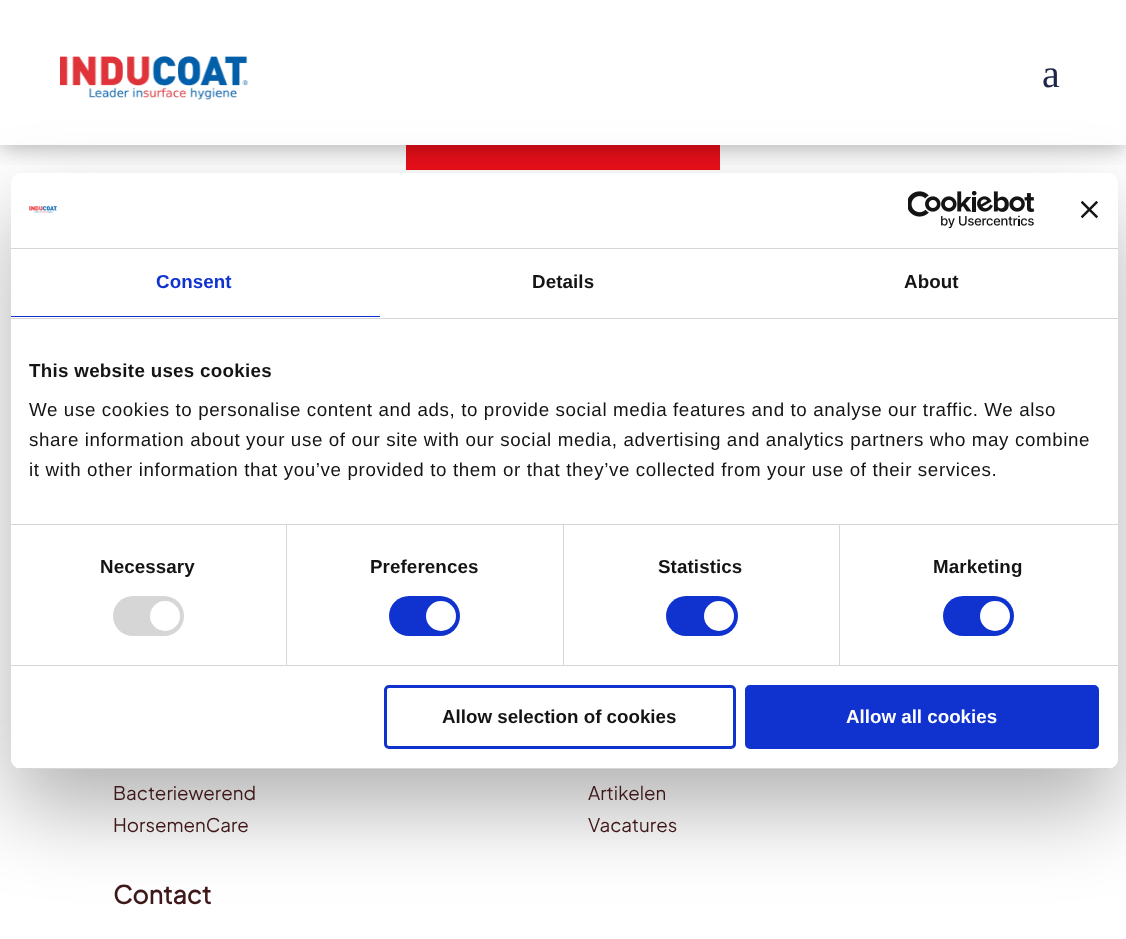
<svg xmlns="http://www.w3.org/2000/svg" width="1126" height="939">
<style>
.a{font:40px Liberation Serif;fill:#1f264a}
.b{font:18.75px Plus Jakarta Sans;fill:#3f1819}
.c{font:bold 25px Plus Jakarta Sans;fill:#3f1819}
.d{font:bold 18.75px Liberation Sans;letter-spacing:0.1px;fill:#1032cf}
.e{font:bold 18.75px Liberation Sans;letter-spacing:0.1px;fill:#141414}
.f{font:bold 18.75px Liberation Sans;letter-spacing:0.3px;fill:#141414}
.g{font:18.75px Liberation Sans;letter-spacing:0.62px;fill:#141414}
.h{font:bold 18.75px Liberation Sans;fill:#141414}
.i{font:bold 18.75px Liberation Sans;fill:#fff}
</style>
<defs>
<clipPath id="clip1"><path d="M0 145h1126v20H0z"/></clipPath>
<clipPath id="clip2"><rect x="11" y="173" width="1107" height="596" rx="10"/></clipPath>
</defs>
<rect width="100%" height="100%" fill="#fff"/>
<path fill="#ec101b" d="M406 145h314v25H406z"/>
<g clip-path="url(#clip1)">
<path fill="#0000004d" filter="blur(11px)" d="M0 3h1126v145H0z"/>
</g>
<image href="1.png" x="60" y="56" width="188" height="44"/>
<rect fill="#0000004d" filter="blur(42.5px)" x="11" y="213" width="1107" height="596" rx="10"/>
<rect fill="#fff" x="11" y="173" width="1107" height="596" rx="10"/>
<path fill="#d6d6d6" d="M11 248h1107v1H11z"/>
<image href="2.png" x="29" y="206" width="28" height="7"/>
<image href="3.png" x="908" y="191" width="127" height="38"/>
<image href="4.png" x="1081" y="201" width="17" height="18"/>
<path fill="#d6d6d6" d="M11 318h1107v1H11z"/>
<path fill="#1032cf" d="M11 316h369v1H11z"/>
<path fill="#d6d6d6" d="M11 524h1107v1H11z"/>
<path fill="#d6d6d6" d="M11 665h1107v1H11z"/>
<path fill="#d6d6d6" d="M286 525h1v140H286z"/>
<rect fill="#d6d6d6" x="113" y="596" width="71" height="40" rx="20"/>
<circle fill="#fff" cx="165" cy="616" r="15"/>
<path fill="#d6d6d6" d="M563 525h1v140H563z"/>
<rect fill="#1032cf" x="389" y="596" width="71" height="40" rx="20"/>
<circle fill="#fff" cx="441" cy="616" r="15"/>
<path fill="#d6d6d6" d="M839 525h1v140H839z"/>
<rect fill="#1032cf" x="666" y="596" width="72" height="40" rx="20"/>
<circle fill="#fff" cx="719" cy="616" r="15"/>
<rect fill="#1032cf" x="943" y="596" width="71" height="40" rx="20"/>
<circle fill="#fff" cx="995" cy="616" r="15"/>
<g clip-path="url(#clip2)">
<path fill="#d6d6d6" d="M11 768h1107v1H11z"/>
</g>
<rect fill="none" stroke="#1032cf" stroke-width="3" x="385.5" y="686.5" width="349" height="61" rx="3.5"/>
<rect fill="#1032cf" stroke="#1032cf" stroke-width="3" x="746.5" y="686.5" width="351" height="61" rx="3.5"/>
<text class="a" x="1042" y="87">a</text>
<text class="b" x="113" y="800">Bacteriewerend</text>
<text class="b" x="113" y="832">HorsemenCare</text>
<text class="b" x="588" y="800">Artikelen</text>
<text class="b" x="588" y="832">Vacatures</text>
<text class="c" x="113" y="904">Contact</text>
<text class="d" x="156" y="288">Consent</text>
<text class="e" x="532" y="288">Details</text>
<text class="e" x="904" y="288">About</text>
<text class="f" x="29" y="377">This website uses cookies</text>
<text class="g" x="29" y="416">We use cookies to personalise content and ads, to provide social media features and to analyse our traffic. We also</text>
<text class="g" x="29" y="446">share information about your use of our site with our social media, advertising and analytics partners who may combine</text>
<text class="g" x="29" y="476">it with other information that you’ve provided to them or that they’ve collected from your use of their services.</text>
<text class="e" x="100" y="573">Necessary</text>
<text class="e" x="370" y="573">Preferences</text>
<text class="e" x="658" y="573">Statistics</text>
<text class="e" x="933" y="573">Marketing</text>
<text class="h" x="442" y="723">Allow selection of cookies</text>
<text class="i" x="846" y="723">Allow all cookies</text>
</svg>
